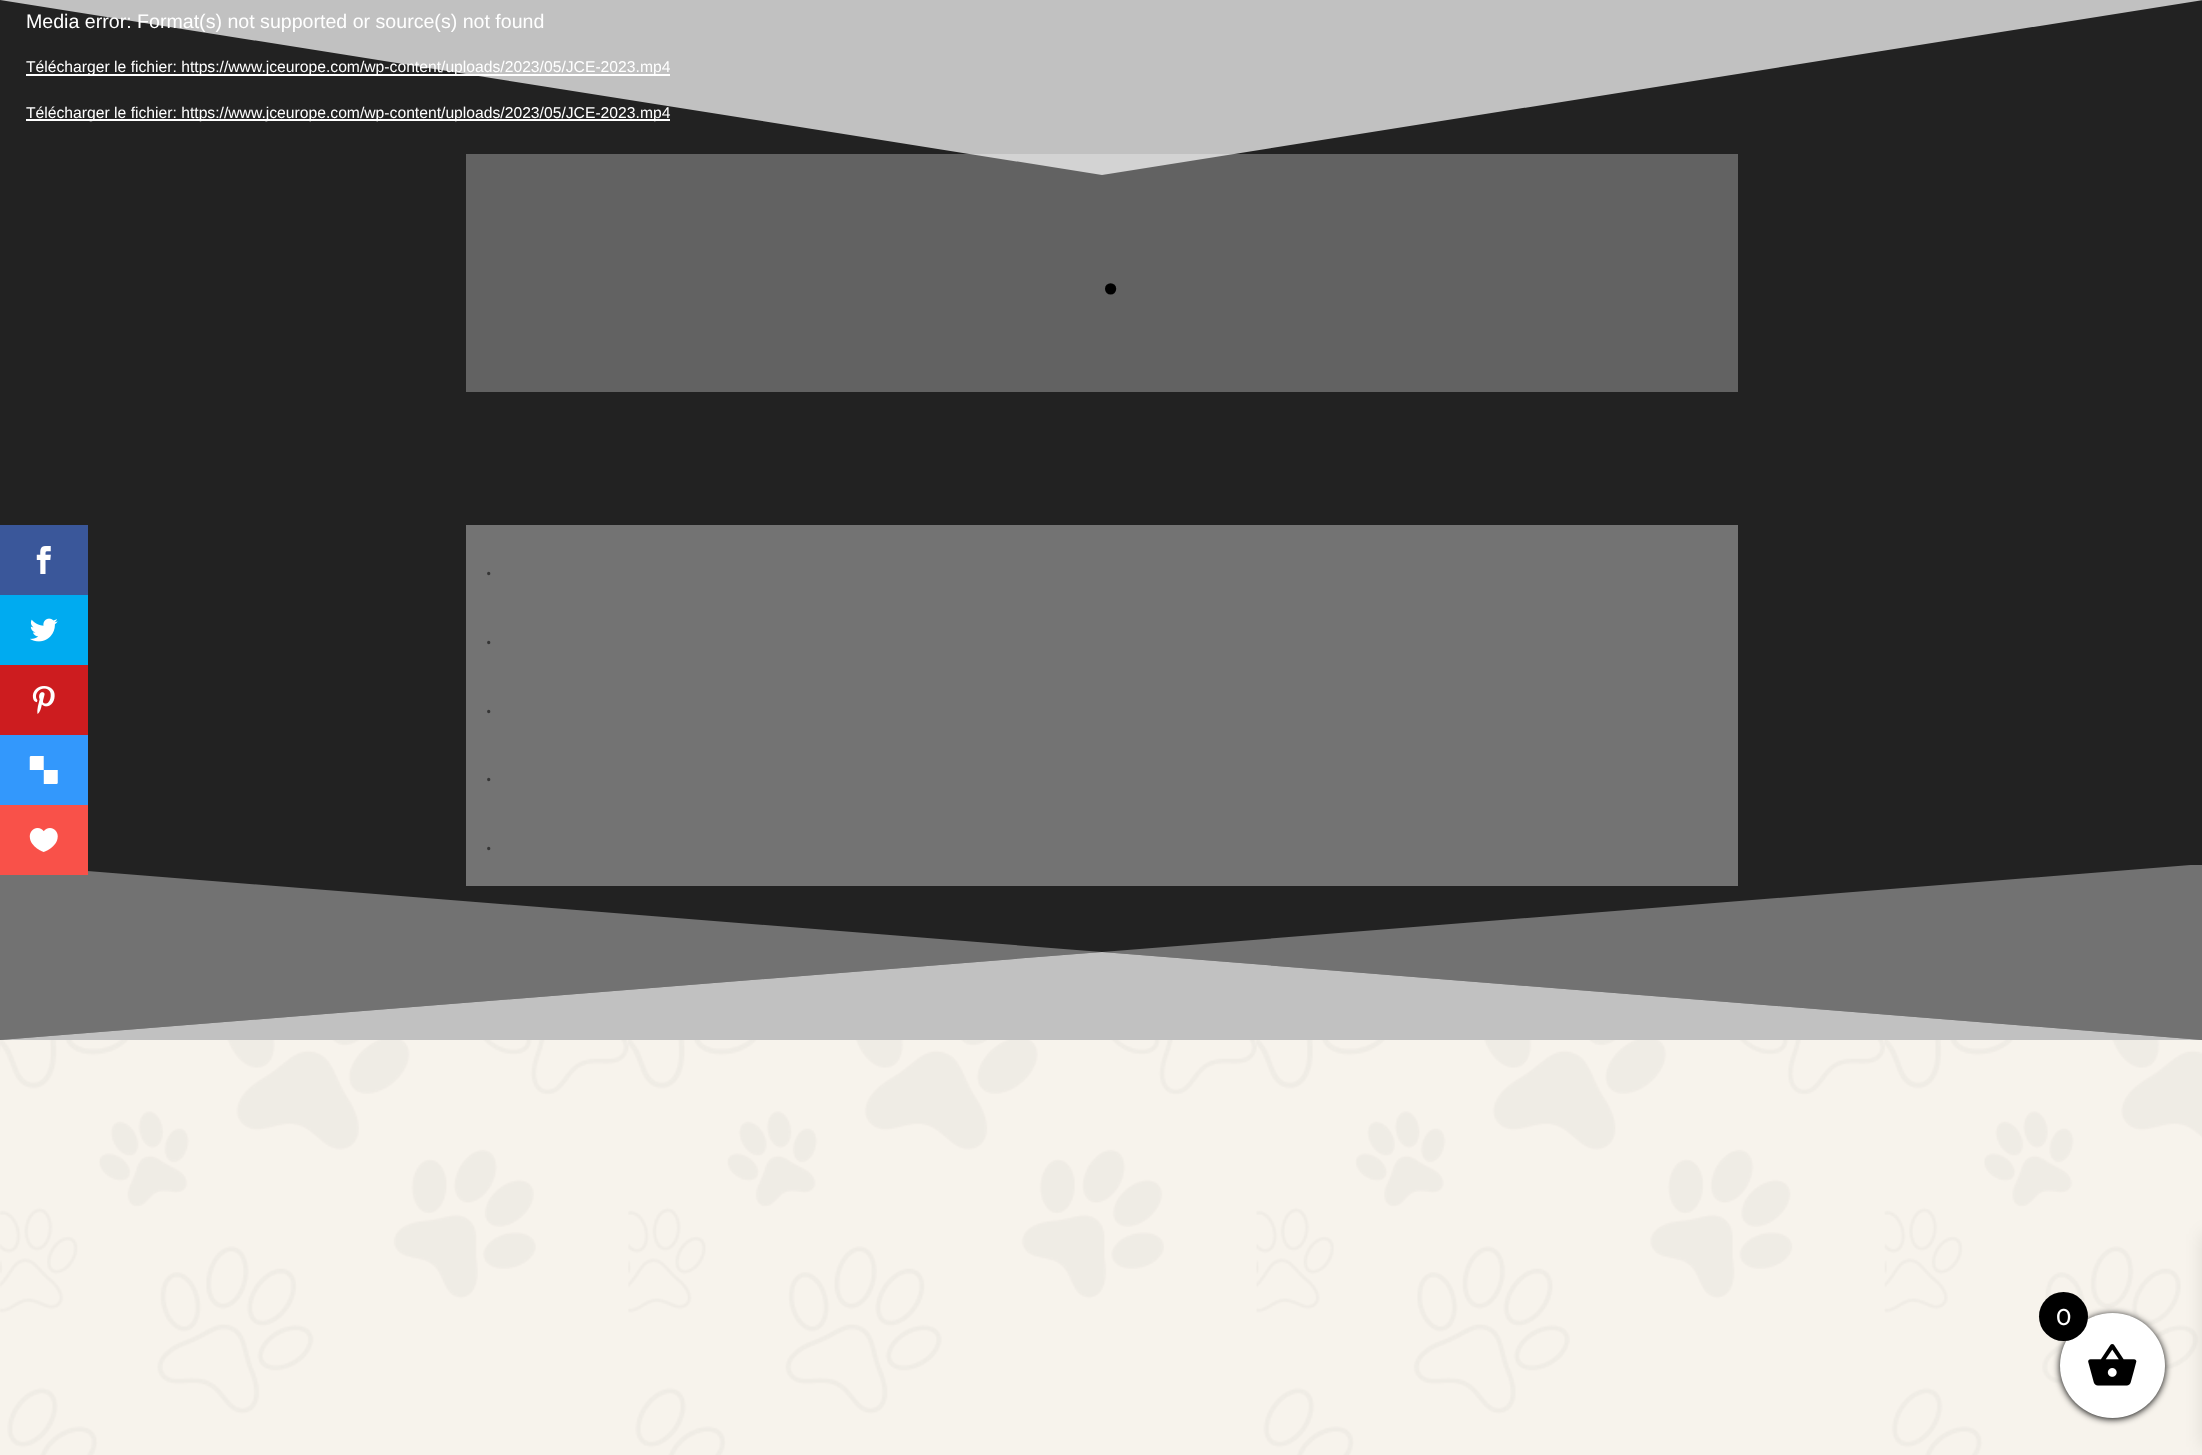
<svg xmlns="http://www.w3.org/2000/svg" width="2202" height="1455">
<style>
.a{font:19.6px Liberation Sans;fill:#fff}
.b{font:15.7px Liberation Sans;fill:#fff}
.c{font:100 58px Montserrat;fill:#000}
.d{font:100 24px 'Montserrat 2';fill:#353535}
.e{font:100 23px 'Montserrat 2';fill:#fff}
</style>
<defs>
<clipPath id="clip1"><path d="M0 865h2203v175H0z"/></clipPath>
</defs>
<rect width="100%" height="100%" fill="#f7f3ec"/>
<image href="1.png" x="0" y="1040" width="2202" height="415"/>
<path fill="#222" d="M0 0h2202v1040H0z"/>
<path fill="#c1c1c1" d="M1102 175l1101-175h-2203z"/>
<path fill="#fff" d="M26 74h644v2H26z"/>
<path fill="#fff" d="M26 119h644v2H26z"/>
<path fill="#ffffff4a" d="M466 154h1272v238H466z"/>
<g clip-path="url(#clip1)">
<path fill="#727272" d="M0 1040l1102-88l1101 88v-176l-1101 88l-1102-88z"/>
</g>
<path fill="#ffffff5e" d="M466 525h1272v361H466z"/>
<path fill="#ffffffb8" d="M0 1040h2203l-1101-88z"/>
<path fill="#3a579a" d="M0 525h88v70H0z"/>
<image href="2.png" x="36" y="546" width="15" height="28"/>
<path fill="#00abf0" d="M0 595h88v70H0z"/>
<image href="3.png" x="30" y="618" width="28" height="24"/>
<path fill="#cd1c1f" d="M0 665h88v70H0z"/>
<image href="4.png" x="32" y="686" width="23" height="28"/>
<path fill="#3398fc" d="M0 735h88v70H0z"/>
<image href="5.png" x="29" y="756" width="29" height="28"/>
<path fill="#f95149" d="M0 805h88v70H0z"/>
<image href="6.png" x="29" y="828" width="29" height="24"/>
<rect fill="#000" filter="blur(3.5px)" x="2060" y="1314" width="105" height="105" rx="52.5"/>
<circle fill="#fff" cx="2112.5" cy="1365.5" r="52.5"/>
<circle fill="#000" cx="2063.5" cy="1316.5" r="24.5"/>
<image href="7.png" x="2088" y="1344" width="49" height="42"/>
<path fill="#0000001a" filter="blur(9px)" d="M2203 1234h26v213H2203z"/>
<text class="a" x="26" y="28">Media error: Format(s) not supported or source(s) not found</text>
<text class="b" x="26" y="72">Télécharger le fichier: https://www.jceurope.com/wp-content/uploads/2023/05/JCE-2023.mp4</text>
<text class="b" x="26" y="118">Télécharger le fichier: https://www.jceurope.com/wp-content/uploads/2023/05/JCE-2023.mp4</text>
<text class="c" x="1103" y="294">.</text>
<text class="d" x="486" y="575">.</text>
<text class="d" x="486" y="644">.</text>
<text class="d" x="486" y="713">.</text>
<text class="d" x="486" y="781">.</text>
<text class="d" x="486" y="850">.</text>
<text class="e" x="2056" y="1325">0</text>
</svg>
